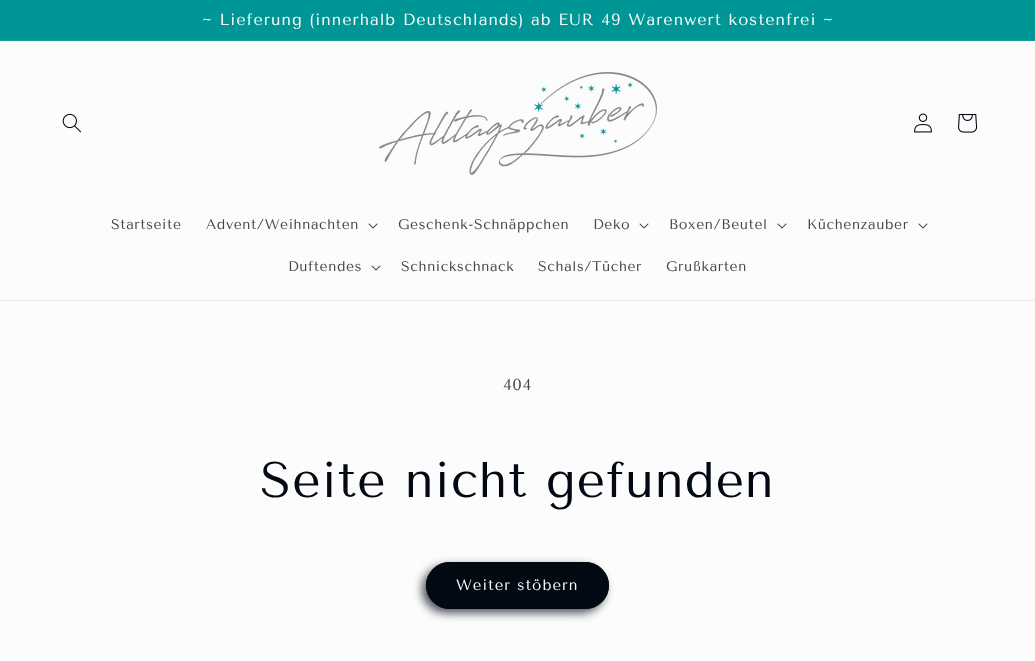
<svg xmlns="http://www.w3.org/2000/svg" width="1035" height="661">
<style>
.a{font:16.25px Tenor Sans;letter-spacing:1px;fill:#fcfcfc}
.b{font:14px Tenor Sans;letter-spacing:0.6px;fill:#41464d}
.c{font:16px Tenor Sans;letter-spacing:0.6px;fill:#41464d}
.d{font:50px Tenor Sans;letter-spacing:0.75px;fill:#020912}
.e{font:15px Tenor Sans;letter-spacing:1px;fill:#fcfcfc}
</style>
<rect width="100%" height="100%" fill="#fcfcfc"/>
<path fill="#009696" d="M0 0h1035v40H0z"/>
<path fill="#149e9e" d="M0 40h1035v1H0z"/>
<path fill="#e8e9e9" d="M0 300h1035v1H0z"/>
<image href="1.png" x="62" y="113" width="19" height="20"/>
<image href="2.png" x="379" y="71" width="278" height="104"/>
<image href="3.png" x="914" y="113" width="18" height="20"/>
<image href="4.png" x="958" y="114" width="20" height="19"/>
<image href="5.png" x="368" y="223" width="10" height="6"/>
<image href="5.png" x="639" y="223" width="10" height="6"/>
<image href="5.png" x="777" y="223" width="10" height="6"/>
<image href="5.png" x="918" y="223" width="10" height="6"/>
<image href="5.png" x="371" y="265" width="10" height="6"/>
<rect fill="#020912b3" filter="blur(5px)" x="422" y="566" width="183" height="47" rx="23.5"/>
<rect fill="#020912" x="426" y="562" width="183" height="47" rx="23.5"/>
<rect fill="none" stroke="#020912" x="426.5" y="562.5" width="182" height="46" rx="23"/>
<text class="a" x="202" y="25">~ Lieferung (innerhalb Deutschlands) ab EUR 49 Warenwert kostenfrei ~</text>
<text class="b" x="111" y="229">Startseite</text>
<text class="b" x="206" y="229">Advent/Weihnachten</text>
<text class="b" x="398" y="229">Geschenk-Schnäppchen</text>
<text class="b" x="593" y="229">Deko</text>
<text class="b" x="669" y="229">Boxen/Beutel</text>
<text class="b" x="807" y="229">Küchenzauber</text>
<text class="b" x="288" y="271">Duftendes</text>
<text class="b" x="401" y="271">Schnickschnack</text>
<text class="b" x="538" y="271">Schals/Tücher</text>
<text class="b" x="666" y="271">Grußkarten</text>
<text class="c" x="503" y="390">404</text>
<text class="d" x="260" y="497">Seite nicht gefunden</text>
<text class="e" x="456" y="590">Weiter stöbern</text>
</svg>
